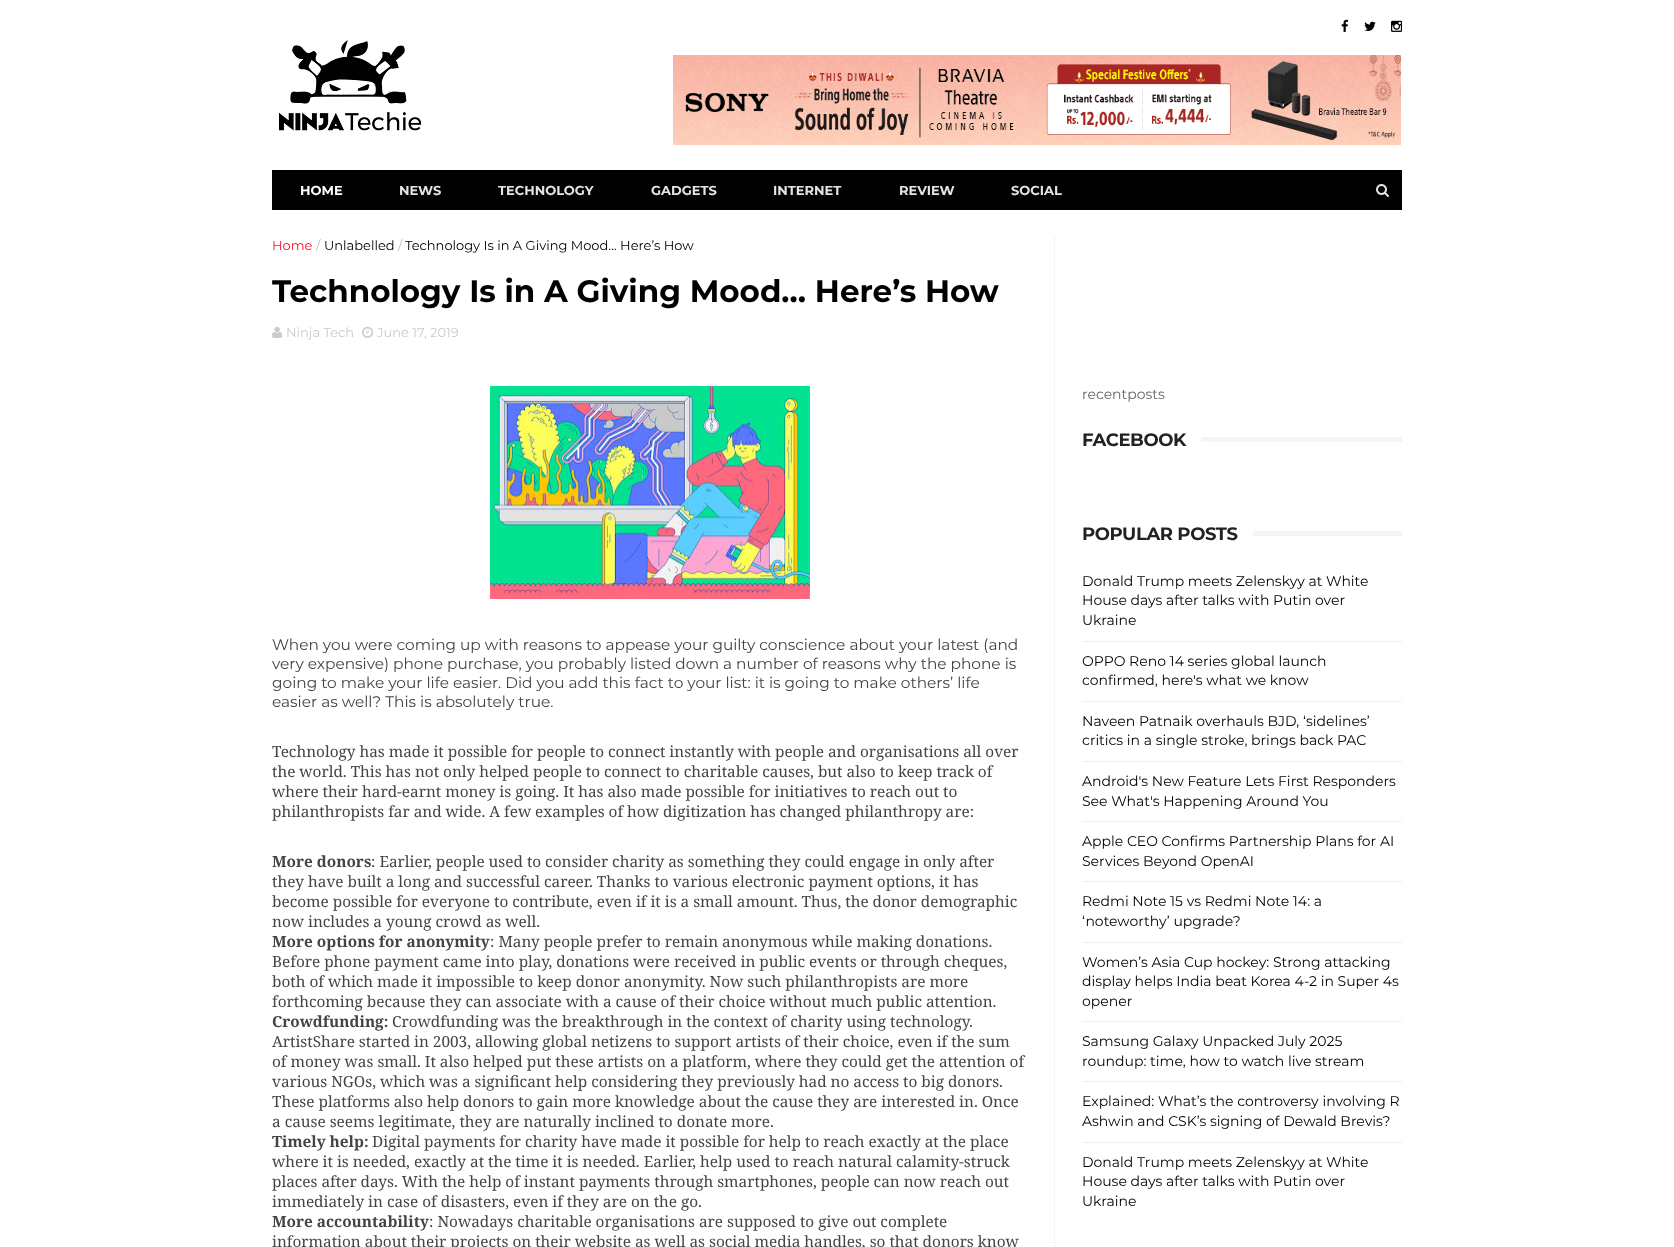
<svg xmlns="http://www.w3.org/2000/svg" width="1674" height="1247">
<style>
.a{font:bold 13px Montserrat;fill:#fff}
.b{font:bold 13px Montserrat;fill:#e4e4e4}
.c{font:13px Montserrat;fill:#f2132d}
.d{font:13px Montserrat;fill:#bdbdbd}
.e{font:13px Montserrat;fill:#010101}
.f{font:bold 31px Montserrat;fill:#010101}
.g{font:13px Montserrat;fill:#cbcbcb}
.h{font:15.35px Montserrat;fill:#444}
.i{font:15.35px Noto Serif;fill:#444}
.j{font:bold 15.35px Noto Serif;fill:#444}
.k{font:14px Montserrat;fill:#666}
.l{font:bold 18px Montserrat;letter-spacing:-0.4px;fill:#222}
.m{font:14px Montserrat;fill:#010101}
</style>
<rect width="100%" height="100%" fill="#fff"/>
<image href="1.png" x="1341" y="19" width="7" height="13"/>
<image href="2.png" x="1364" y="21" width="12" height="10"/>
<image href="3.png" x="1391" y="20" width="11" height="12"/>
<image href="4.png" x="278" y="40" width="144" height="91"/>
<image href="5.png" x="673" y="55" width="728" height="90"/>
<path fill="#010101" d="M272 170h1130v40H272z"/>
<image href="6.png" x="1376" y="184" width="13" height="13"/>
<path fill="#f3f3f3" d="M1054 235h1v1012H1054z"/>
<image href="7.png" x="272" y="326" width="11" height="12"/>
<image href="8.png" x="362" y="326" width="12" height="12"/>
<image href="9.png" x="490" y="386" width="320" height="213"/>
<path fill="#f5f5f5" d="M1201 437h201v5H1201z"/>
<path fill="#f5f5f5" d="M1253 531h149v5H1253z"/>
<path fill="#eee" d="M1082 641h320v1H1082z"/>
<path fill="#eee" d="M1082 701h320v1H1082z"/>
<path fill="#eee" d="M1082 761h320v1H1082z"/>
<path fill="#eee" d="M1082 821h320v1H1082z"/>
<path fill="#eee" d="M1082 881h320v1H1082z"/>
<path fill="#eee" d="M1082 942h320v1H1082z"/>
<path fill="#eee" d="M1082 1021h320v1H1082z"/>
<path fill="#eee" d="M1082 1081h320v1H1082z"/>
<path fill="#eee" d="M1082 1142h320v1H1082z"/>
<text class="a" x="300" y="195">HOME</text>
<text class="b" x="399" y="195">NEWS</text>
<text class="b" x="498" y="195">TECHNOLOGY</text>
<text class="b" x="651" y="195">GADGETS</text>
<text class="b" x="773" y="195">INTERNET</text>
<text class="b" x="899" y="195">REVIEW</text>
<text class="b" x="1011" y="195">SOCIAL</text>
<text class="c" x="272" y="250">Home</text>
<text class="d" x="316" y="250">/</text>
<text class="e" x="324" y="250">Unlabelled</text>
<text class="d" x="398" y="250">/</text>
<text class="e" x="405" y="250">Technology Is in A Giving Mood… Here’s How</text>
<text class="f" x="272" y="302">Technology Is in A Giving Mood… Here’s How</text>
<text class="g" x="286" y="337">Ninja Tech</text>
<text class="g" x="377" y="337">June 17, 2019</text>
<text class="h" x="272" y="650">When you were coming up with reasons to appease your guilty conscience about your latest (and</text>
<text class="h" x="272" y="669">very expensive) phone purchase, you probably listed down a number of reasons why the phone is</text>
<text class="h" x="272" y="688">going to make your life easier. Did you add this fact to your list: it is going to make others’ life</text>
<text class="h" x="272" y="707">easier as well? This is absolutely true.</text>
<text class="i" x="272" y="757">Technology has made it possible for people to connect instantly with people and organisations all over</text>
<text class="i" x="272" y="777">the world. This has not only helped people to connect to charitable causes, but also to keep track of</text>
<text class="i" x="272" y="797">where their hard-earnt money is going. It has also made possible for initiatives to reach out to</text>
<text class="i" x="272" y="817">philanthropists far and wide. A few examples of how digitization has changed philanthropy are:</text>
<text class="j" x="272" y="867">More donors</text>
<text class="i" x="371" y="867">: Earlier, people used to consider charity as something they could engage in only after</text>
<text class="i" x="272" y="887">they have built a long and successful career. Thanks to various electronic payment options, it has</text>
<text class="i" x="272" y="907">become possible for everyone to contribute, even if it is a small amount. Thus, the donor demographic</text>
<text class="i" x="272" y="927">now includes a young crowd as well.</text>
<text class="j" x="272" y="947">More options for anonymity</text>
<text class="i" x="490" y="947">: Many people prefer to remain anonymous while making donations.</text>
<text class="i" x="272" y="967">Before phone payment came into play, donations were received in public events or through cheques,</text>
<text class="i" x="272" y="987">both of which made it impossible to keep donor anonymity. Now such philanthropists are more</text>
<text class="i" x="272" y="1007">forthcoming because they can associate with a cause of their choice without much public attention.</text>
<text class="j" x="272" y="1027">Crowdfunding:</text>
<text class="i" x="392" y="1027">Crowdfunding was the breakthrough in the context of charity using technology.</text>
<text class="i" x="272" y="1047">ArtistShare started in 2003, allowing global netizens to support artists of their choice, even if the sum</text>
<text class="i" x="272" y="1067">of money was small. It also helped put these artists on a platform, where they could get the attention of</text>
<text class="i" x="272" y="1087">various NGOs, which was a significant help considering they previously had no access to big donors.</text>
<text class="i" x="272" y="1107">These platforms also help donors to gain more knowledge about the cause they are interested in. Once</text>
<text class="i" x="272" y="1127">a cause seems legitimate, they are naturally inclined to donate more.</text>
<text class="j" x="272" y="1147">Timely help:</text>
<text class="i" x="372" y="1147">Digital payments for charity have made it possible for help to reach exactly at the place</text>
<text class="i" x="272" y="1167">where it is needed, exactly at the time it is needed. Earlier, help used to reach natural calamity-struck</text>
<text class="i" x="272" y="1187">places after days. With the help of instant payments through smartphones, people can now reach out</text>
<text class="i" x="272" y="1207">immediately in case of disasters, even if they are on the go.</text>
<text class="j" x="272" y="1227">More accountability</text>
<text class="i" x="429" y="1227">: Nowadays charitable organisations are supposed to give out complete</text>
<text class="i" x="272" y="1247">information about their projects on their website as well as social media handles, so that donors know</text>
<text class="k" x="1082" y="399">recentposts</text>
<text class="l" x="1082" y="446">FACEBOOK</text>
<text class="l" x="1082" y="540">POPULAR POSTS</text>
<text class="m" x="1082" y="586">Donald Trump meets Zelenskyy at White</text>
<text class="m" x="1082" y="605">House days after talks with Putin over</text>
<text class="m" x="1082" y="625">Ukraine</text>
<text class="m" x="1082" y="666">OPPO Reno 14 series global launch</text>
<text class="m" x="1082" y="685">confirmed, here's what we know</text>
<text class="m" x="1082" y="726">Naveen Patnaik overhauls BJD, ‘sidelines’</text>
<text class="m" x="1082" y="745">critics in a single stroke, brings back PAC</text>
<text class="m" x="1082" y="786">Android's New Feature Lets First Responders</text>
<text class="m" x="1082" y="806">See What's Happening Around You</text>
<text class="m" x="1082" y="846">Apple CEO Confirms Partnership Plans for AI</text>
<text class="m" x="1082" y="866">Services Beyond OpenAI</text>
<text class="m" x="1082" y="906">Redmi Note 15 vs Redmi Note 14: a</text>
<text class="m" x="1082" y="926">‘noteworthy’ upgrade?</text>
<text class="m" x="1082" y="967">Women’s Asia Cup hockey: Strong attacking</text>
<text class="m" x="1082" y="986">display helps India beat Korea 4-2 in Super 4s</text>
<text class="m" x="1082" y="1006">opener</text>
<text class="m" x="1082" y="1046">Samsung Galaxy Unpacked July 2025</text>
<text class="m" x="1082" y="1066">roundup: time, how to watch live stream</text>
<text class="m" x="1082" y="1106">Explained: What’s the controversy involving R</text>
<text class="m" x="1082" y="1126">Ashwin and CSK’s signing of Dewald Brevis?</text>
<text class="m" x="1082" y="1167">Donald Trump meets Zelenskyy at White</text>
<text class="m" x="1082" y="1186">House days after talks with Putin over</text>
<text class="m" x="1082" y="1206">Ukraine</text>
</svg>
